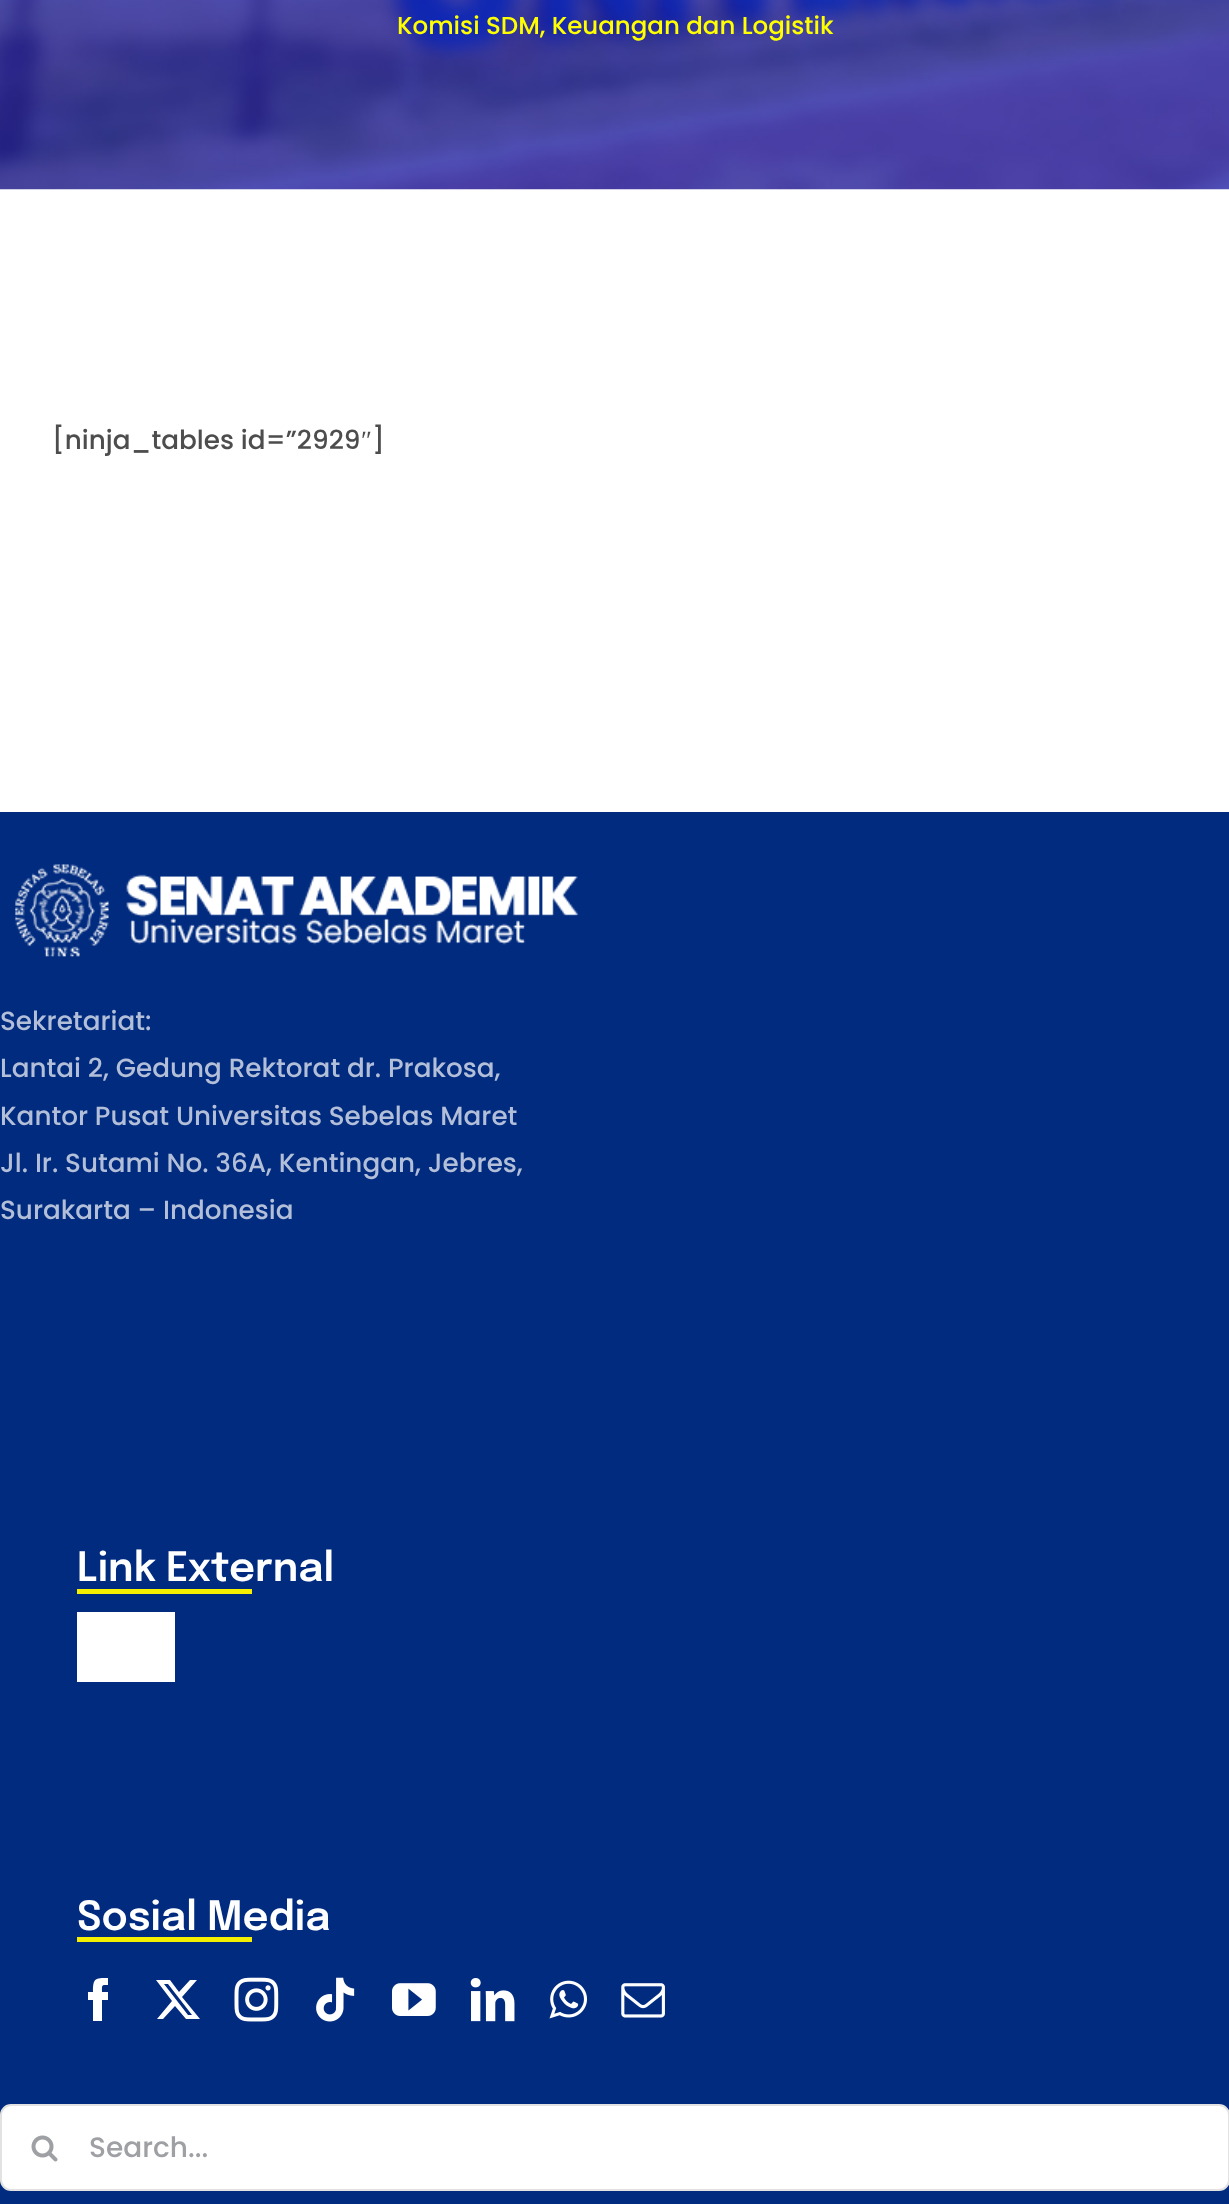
<svg xmlns="http://www.w3.org/2000/svg" width="1229" height="2204">
<style>
.a{font:500 24.5px Poppins;fill:#ff0}
.b{font:500 26.25px Poppins;fill:#4d4d4d}
.c{font:26.25px Liberation Serif;fill:#4d4d4d}
.d{font:500 26.25px Poppins;fill:#b3bfd9}
.e{font:600 40.25px Epilogue;fill:#fff}
.f{font:500 28px Poppins;fill:#9ea0a4}
</style>
<rect width="100%" height="100%" fill="#fff"/>
<image href="1.png" x="0" y="0" width="1229" height="190"/>
<path fill="#012b7f" d="M0 812h1229v1392H0z"/>
<image href="2.png" x="15" y="864" width="564" height="93"/>
<path fill="#f7ef00" d="M77 1589h175v5H77z"/>
<path fill="#fff" d="M77 1612h98v70H77z"/>
<path fill="#f7ef00" d="M77 1937h175v5H77z"/>
<path fill="#fff" d="M102 2021h-9v-21h-5v-8h5c0-14 2-14 15-14v7c-7 0-6 0-6 7h6v8h-6z"/>
<path fill="#fff" d="M190 1980h7l-15 17l18 22h-14l-11-13l-12 13h-6l15-18l-16-21h14l9 12zm-2 35h4l-24-31h-4z"/>
<image href="3.png" x="234" y="1977" width="45" height="45"/>
<image href="4.png" x="316" y="1977" width="39" height="45"/>
<image href="5.png" x="392" y="1983" width="44" height="33"/>
<image href="6.png" x="470" y="1978" width="45" height="44"/>
<image href="7.png" x="549" y="1980" width="38" height="39"/>
<image href="8.png" x="621" y="1983" width="44" height="35"/>
<rect fill="#fff" stroke="#e2e2e2" stroke-width="2" x="1" y="2105" width="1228" height="85" rx="10"/>
<image href="9.png" x="31" y="2135" width="27" height="27"/>
<text class="a" x="397" y="34">Komisi SDM, Keuangan dan Logistik</text>
<text class="b" x="52" y="449">[ninja_tables id=”2929</text>
<text class="c" x="361" y="449">″</text>
<text class="b" x="372" y="449">]</text>
<text class="d" x="0" y="1030">Sekretariat:</text>
<text class="d" x="0" y="1077">Lantai 2, Gedung Rektorat dr. Prakosa,</text>
<text class="d" x="0" y="1125">Kantor Pusat Universitas Sebelas Maret</text>
<text class="d" x="0" y="1172">Jl. Ir. Sutami No. 36A, Kentingan, Jebres,</text>
<text class="d" x="0" y="1219">Surakarta – Indonesia</text>
<text class="e" x="77" y="1581">Link External</text>
<text class="e" x="77" y="1930">Sosial Media</text>
<text class="f" x="89" y="2157">Search...</text>
</svg>
